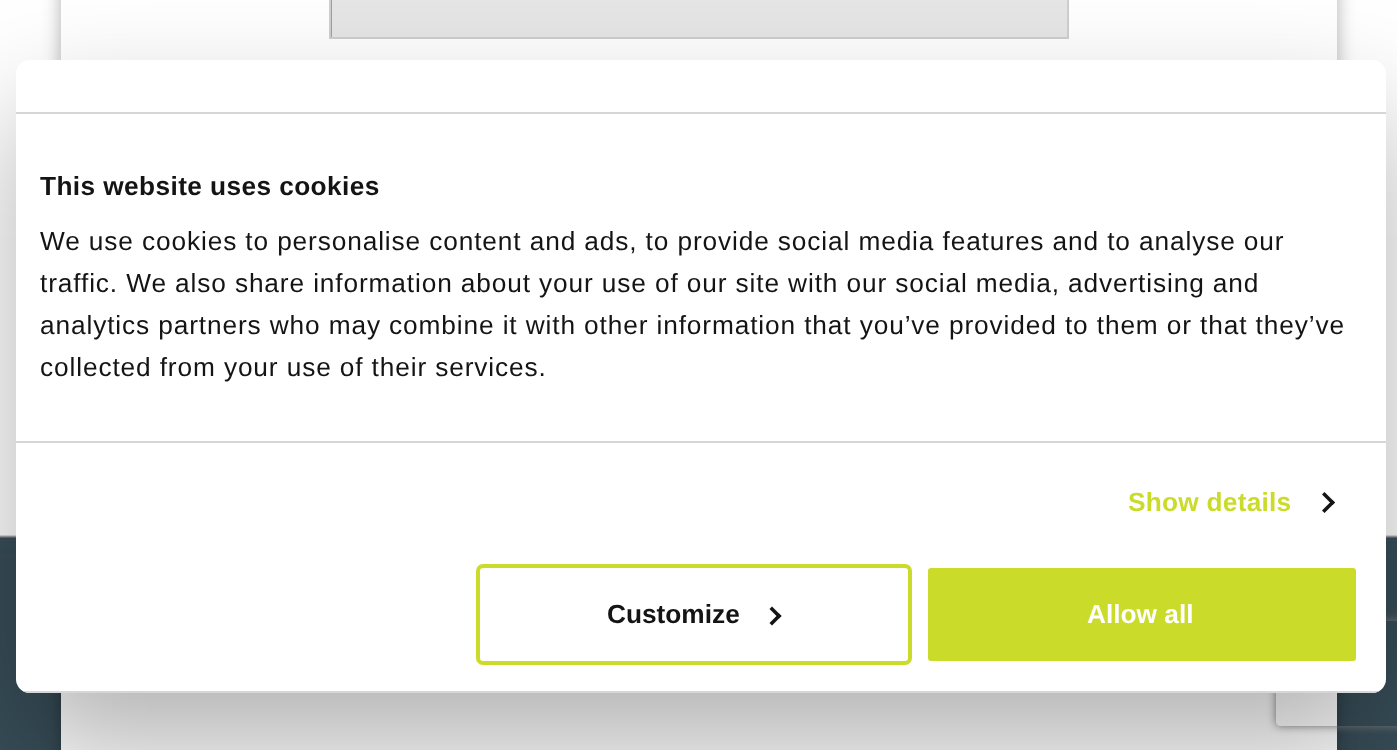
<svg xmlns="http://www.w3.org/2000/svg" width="1397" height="750">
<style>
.a{font:bold 26.25px Liberation Sans;letter-spacing:0.4px;fill:#141414}
.b{font:26.25px Liberation Sans;letter-spacing:0.88px;fill:#141414}
.c{font:bold 26.25px Liberation Sans;letter-spacing:0.25px;fill:#cbdb2a}
.d{font:bold 26.25px Liberation Sans;fill:#141414}
.e{font:bold 26.25px Liberation Sans;fill:#fff}
</style>
<defs>
<clipPath id="clip1"><path d="M331 0h737v37H331z"/></clipPath>
<clipPath id="clip2"><path d="M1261 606h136v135h-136zm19 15h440c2 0 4 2 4 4v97c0 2-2 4-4 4h-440c-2 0-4-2-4-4v-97c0-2 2-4 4-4z" clip-rule="evenodd"/></clipPath>
<clipPath id="clip3"><rect x="16" y="60" width="1370" height="633" rx="14"/></clipPath>
</defs>
<rect width="100%" height="100%" fill="#fff"/>
<image href="1.png" x="0" y="535" width="1397" height="215"/>
<path fill="#0000004d" filter="blur(9px)" d="M61 -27h1276v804H61z"/>
<path fill="#fff" d="M61 0h1276v750H61z"/>
<path fill="#e6e6e6" d="M332 0h735v37H332z"/>
<g clip-path="url(#clip1)">
<path fill="#a1a1a1" fill-rule="evenodd" d="M158-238h1083v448h-1083zm174 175h737v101h-737z"/>
</g>
<path fill="none" stroke="#cfcfcf" stroke-width="2" d="M330 -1h738v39H330z"/>
<g clip-path="url(#clip2)">
<rect fill="#808080" filter="blur(4.5px)" x="1276" y="621" width="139" height="105" rx="4"/>
</g>
<rect fill="#0000004d" filter="blur(59.5px)" x="16" y="116" width="1370" height="633" rx="14"/>
<rect fill="#fff" x="16" y="60" width="1370" height="633" rx="14"/>
<path fill="#d6d6d6" d="M16 112h1370v2H16z"/>
<path fill="#d6d6d6" d="M16 441h1370v2H16z"/>
<path fill="#141414" d="M1324.5 492l10.5 10.5l-2.5 2.5l-10.5-10.5z"/>
<path fill="#141414" d="M1332.5 500l2.5 2.5l-10.5 10.5l-2.5-2.5z"/>
<g clip-path="url(#clip3)">
<path fill="#d6d6d6" d="M16 691h1370v2H16z"/>
</g>
<rect fill="none" stroke="#cbdb2a" stroke-width="4" x="478" y="566" width="432" height="97" rx="5"/>
<path fill="#141414" d="M772 606.5l9.5 9.5l-2.5 2.5l-9.5-9.5z"/>
<path fill="#141414" d="M779 613.5l2.5 2.5l-9.5 9.5l-2.5-2.5z"/>
<rect fill="#cbdb2a" stroke="#fff" stroke-width="4" x="926" y="566" width="432" height="97" rx="5"/>
<text class="a" x="40" y="195">This website uses cookies</text>
<text class="b" x="40" y="250">We use cookies to personalise content and ads, to provide social media features and to analyse our</text>
<text class="b" x="40" y="292">traffic. We also share information about your use of our site with our social media, advertising and</text>
<text class="b" x="40" y="334">analytics partners who may combine it with other information that you’ve provided to them or that they’ve</text>
<text class="b" x="40" y="376">collected from your use of their services.</text>
<text class="c" x="1128" y="511">Show details</text>
<text class="d" x="607" y="623">Customize</text>
<text class="e" x="1087" y="623">Allow all</text>
</svg>
